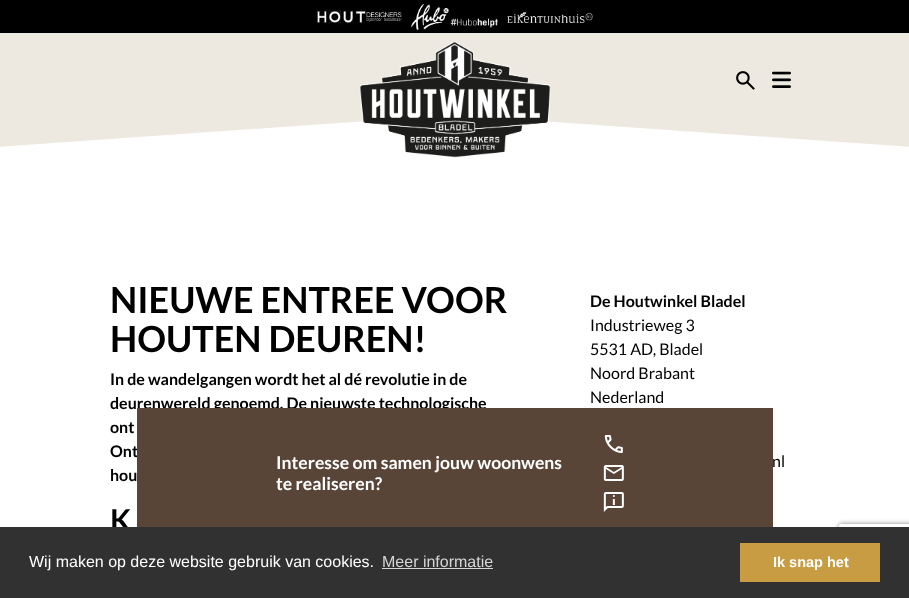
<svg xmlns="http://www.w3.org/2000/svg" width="909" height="598">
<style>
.a{font:bold 36px Lato;fill:#000}
.b{font:bold 16px Lato;fill:#000}
.c{font:bold 30px Lato;fill:#000}
.d{font:16px Lato;fill:#000}
.e{font:bold 17.6px Lato;fill:#fff}
.f{font:16px Liberation Sans;fill:#fff}
.g{font:16px Liberation Sans;fill:#d6d6d6}
.h{font:bold 14.5px Liberation Sans;fill:#fff}
</style>
<defs>
<clipPath id="clip1"><path d="M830 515h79v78h-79zm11 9h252c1 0 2 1 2 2v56c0 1-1 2-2 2h-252c-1 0-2-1-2-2v-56c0-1 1-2 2-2z" clip-rule="evenodd"/></clipPath>
</defs>
<rect width="100%" height="100%" fill="#fff"/>
<path fill="#eee9e0" d="M-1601 98l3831-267l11 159l-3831 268z"/>
<path fill="#eee9e0" d="M-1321-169l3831 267l-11 160l-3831-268z"/>
<image href="1.png" x="736" y="71" width="19" height="19"/>
<image href="2.png" x="772" y="71" width="19" height="17"/>
<path fill="#000" d="M0 0h909v33H0z"/>
<image href="3.png" x="317" y="9" width="85" height="16"/>
<image href="4.png" x="411" y="4" width="87" height="26"/>
<image href="5.png" x="507" y="12" width="86" height="11"/>
<image href="6.png" x="359" y="41" width="192" height="117"/>
<g clip-path="url(#clip1)">
<rect fill="#808080" filter="blur(2.5px)" x="839" y="524" width="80" height="60" rx="2"/>
</g>
<text class="a" x="110" y="313">NIEUWE ENTREE VOOR</text>
<text class="a" x="110" y="352">HOUTEN DEUREN!</text>
<text class="b" x="110" y="385">In de wandelgangen wordt het al dé revolutie in de</text>
<text class="b" x="110" y="409">deurenwereld genoemd. De nieuwste technologische</text>
<text class="b" x="110" y="433">ont</text>
<text class="b" x="110" y="457">Ont</text>
<text class="b" x="110" y="481">hou</text>
<text class="c" x="110" y="531">K</text>
<text class="b" x="590" y="307">De Houtwinkel Bladel</text>
<text class="d" x="590" y="331">Industrieweg 3</text>
<text class="d" x="590" y="355">5531 AD, Bladel</text>
<text class="d" x="590" y="379">Noord Brabant</text>
<text class="d" x="590" y="403">Nederland</text>
<text class="d" x="772" y="467">nl</text>
<path fill="#594537" d="M137 408h636v119H137z"/>
<text class="e" x="276" y="469">Interesse om samen jouw woonwens</text>
<text class="e" x="276" y="490">te realiseren?</text>
<image href="7.png" x="604" y="435" width="19" height="18"/>
<image href="8.png" x="603" y="465" width="21" height="16"/>
<image href="9.png" x="603" y="492" width="21" height="20"/>
<path fill="#313131" d="M0 527h909v71H0z"/>
<text class="f" x="29" y="567">Wij maken op deze website gebruik van cookies.</text>
<text class="g" x="382" y="567">Meer informatie</text>
<path fill="#d6d6d6" d="M382 568h111v1H382z"/>
<path fill="#c89c43" d="M740 543h140v39H740z"/>
<text class="h" x="773" y="567">Ik snap het</text>
</svg>
